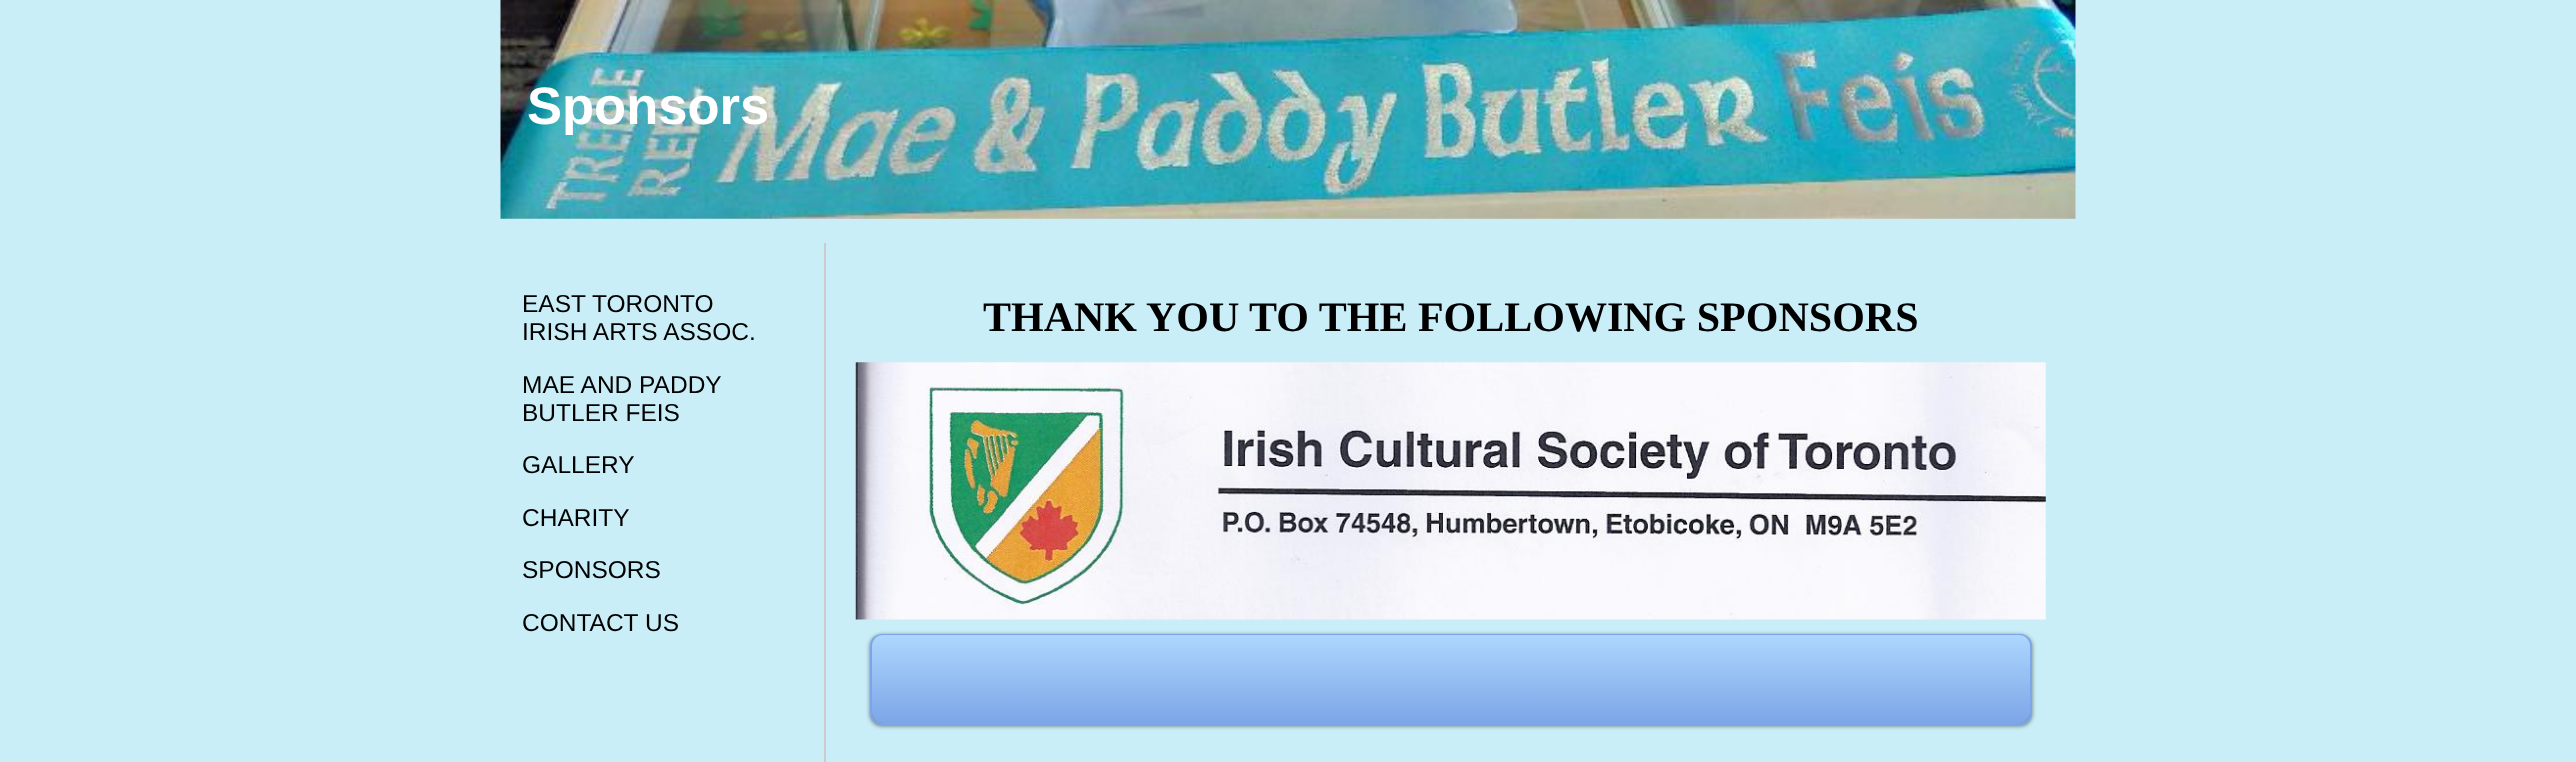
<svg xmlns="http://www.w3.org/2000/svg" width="2576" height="762">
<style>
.a{font:bold 52.5px Liberation Sans;fill:#fff}
.b{font:24.5px Liberation Sans;fill:#000}
.c{font:bold 42px Liberation Serif;fill:#000}
</style>
<defs>
<linearGradient id="g1" gradientUnits="userSpaceOnUse" x1="1451" y1="635" x2="1451" y2="723"><stop offset="0" stop-color="#aed6fe"/><stop offset="1" stop-color="#7ca6e7"/></linearGradient>
</defs>
<rect width="100%" height="100%" fill="#c9eef7"/>
<image href="1.png" x="500" y="0" width="1576" height="219"/>
<path fill="#ccc" d="M824 243h2v519H824z"/>
<image href="2.png" x="855" y="362" width="1191" height="258"/>
<rect fill="#00000080" filter="blur(2px)" x="870" y="635" width="1162" height="91" rx="12"/>
<rect fill="none" stroke="#7ca6e7" stroke-width="2" x="871" y="635" width="1160" height="89" rx="11"/>
<rect fill="url(#g1)" x="872" y="635" width="1158" height="88" rx="11"/>
<text class="a" x="527" y="124">Sponsors</text>
<text class="b" x="522" y="312">EAST TORONTO</text>
<text class="b" x="522" y="340">IRISH ARTS ASSOC.</text>
<text class="b" x="522" y="393">MAE AND PADDY</text>
<text class="b" x="522" y="421">BUTLER FEIS</text>
<text class="b" x="522" y="473">GALLERY</text>
<text class="b" x="522" y="526">CHARITY</text>
<text class="b" x="522" y="578">SPONSORS</text>
<text class="b" x="522" y="631">CONTACT US</text>
<text class="c" x="983" y="331">THANK YOU TO THE FOLLOWING SPONSORS</text>
</svg>
